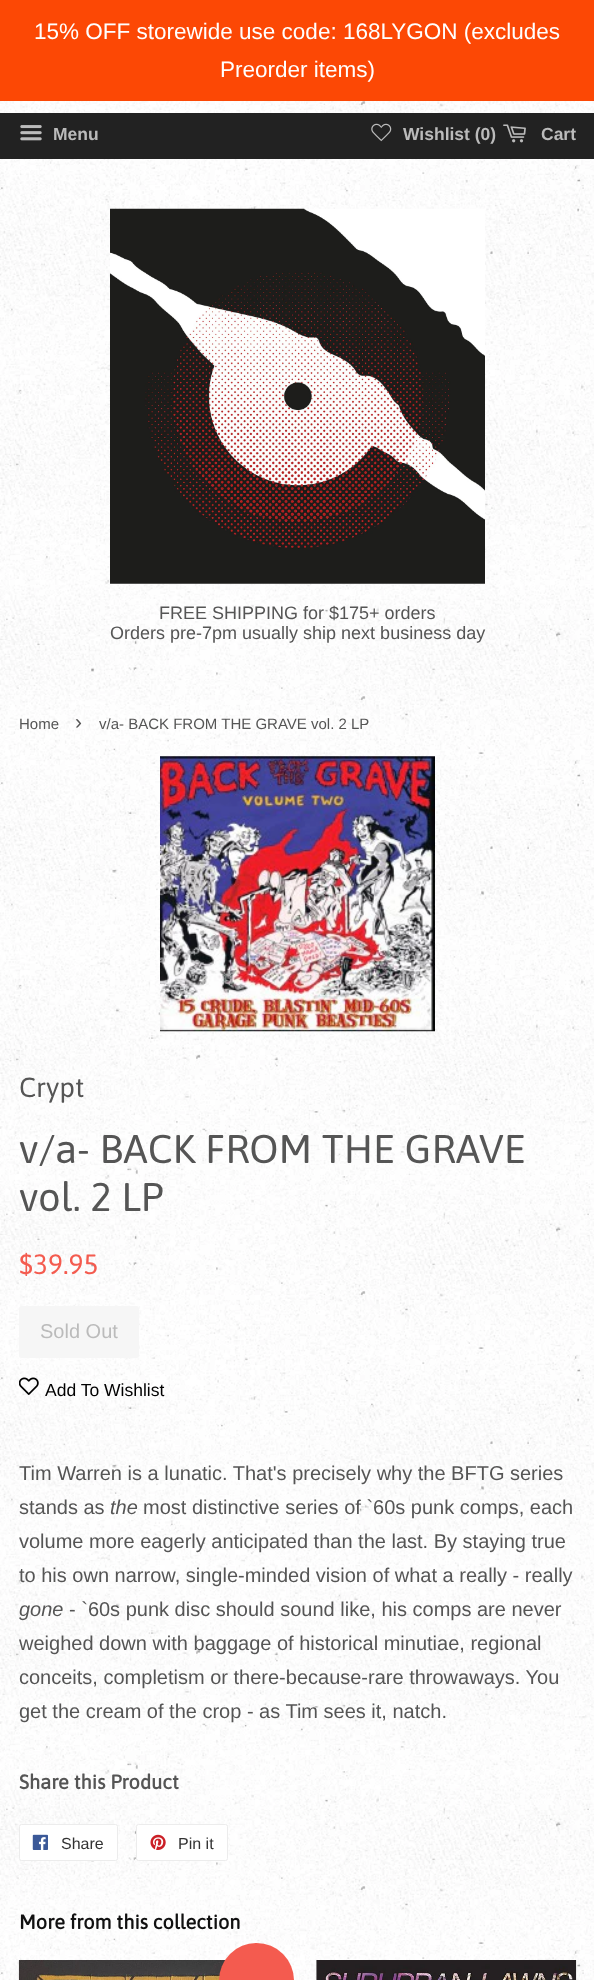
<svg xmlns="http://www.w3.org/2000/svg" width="594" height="1980">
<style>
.a{font:22.5px Liberation Sans;fill:#fff}
.b{font:bold 17.5px Liberation Sans;fill:#bbb}
.c{font:18px Liberation Sans;fill:#555}
.d{font:15px Liberation Sans;fill:#555}
.e{font:21px Liberation Sans;fill:#555}
.f{font:27.5px Asap;fill:#555}
.g{font:40px Asap;fill:#555}
.h{font:28px Asap;fill:#f45b4f}
.i{font:20px Liberation Sans;fill:#bbb}
.j{font:17.5px Liberation Sans;fill:#000}
.k{font:20px Liberation Sans;fill:#555}
.l{font:italic 20px Liberation Sans;fill:#555}
.m{font:bold 20px Asap;fill:#555}
.n{font:16px Liberation Sans;fill:#333}
.o{font:bold 20px Asap;fill:#111}
</style>
<rect width="100%" height="100%" fill="#fff"/>
<image href="1.png" x="0" y="101" width="594" height="12"/>
<image href="2.png" x="0" y="159" width="594" height="1821"/>
<path fill="#fc4805" d="M0 0h594v101H0z"/>
<path fill="#222" d="M0 113h594v46H0z"/>
<image href="3.png" x="20" y="125" width="22" height="16"/>
<image href="4.png" x="371" y="123" width="21" height="19"/>
<image href="5.png" x="503" y="124" width="23" height="19"/>
<image href="6.png" x="110" y="208" width="375" height="376"/>
<image href="7.png" x="160" y="756" width="275" height="276"/>
<rect fill="#f6f6f6" x="19" y="1306" width="120" height="52" rx="2.5"/>
<image href="8.png" x="19" y="1377" width="20" height="18"/>
<rect fill="#fff" stroke="#ececec" x="19.5" y="1824.5" width="98" height="36" rx="2"/>
<image href="9.png" x="32" y="1834" width="16" height="16"/>
<rect fill="#fff" stroke="#ececec" x="136.5" y="1824.5" width="91" height="36" rx="2"/>
<image href="10.png" x="150" y="1834" width="16" height="16"/>
<image href="11.png" x="18" y="1960" width="208" height="20"/>
<circle fill="#f45b4f" cx="256.5" cy="1980.5" r="37.5"/>
<image href="12.png" x="316" y="1960" width="261" height="20"/>
<text class="a" x="34" y="39">15% OFF storewide use code: 168LYGON (excludes</text>
<text class="a" x="220" y="77">Preorder items)</text>
<text class="b" x="53" y="140">Menu</text>
<text class="b" x="403" y="140">Wishlist (0)</text>
<text class="b" x="541" y="140">Cart</text>
<text class="c" x="159" y="619">FREE SHIPPING for $175+ orders</text>
<text class="c" x="110" y="639">Orders pre-7pm usually ship next business day</text>
<text class="d" x="19" y="729">Home</text>
<text class="e" x="75" y="729">›</text>
<text class="d" x="99" y="729">v/a- BACK FROM THE GRAVE vol. 2 LP</text>
<text class="f" x="19" y="1097">Crypt</text>
<text class="g" x="19" y="1163">v/a- BACK FROM THE GRAVE</text>
<text class="g" x="19" y="1211">vol. 2 LP</text>
<text class="h" x="19" y="1274">$39.95</text>
<text class="i" x="40" y="1338">Sold Out</text>
<text class="j" x="45" y="1396">Add To Wishlist</text>
<text class="k" x="19" y="1480">Tim Warren is a lunatic. That's precisely why the BFTG series</text>
<text class="k" x="19" y="1514">stands as</text>
<text class="l" x="110" y="1514">the</text>
<text class="k" x="143" y="1514">most distinctive series of `60s punk comps, each</text>
<text class="k" x="19" y="1548">volume more eagerly anticipated than the last. By staying true</text>
<text class="k" x="19" y="1582">to his own narrow, single-minded vision of what a really - really</text>
<text class="l" x="19" y="1616">gone</text>
<text class="k" x="69" y="1616">- `60s punk disc should sound like, his comps are never</text>
<text class="k" x="19" y="1650">weighed down with baggage of historical minutiae, regional</text>
<text class="k" x="19" y="1684">conceits, completism or there-because-rare throwaways. You</text>
<text class="k" x="19" y="1718">get the cream of the crop - as Tim sees it, natch.</text>
<text class="m" x="19" y="1789">Share this Product</text>
<text class="n" x="61" y="1849">Share</text>
<text class="n" x="178" y="1849">Pin it</text>
<text class="o" x="19" y="1929">More from this collection</text>
</svg>
